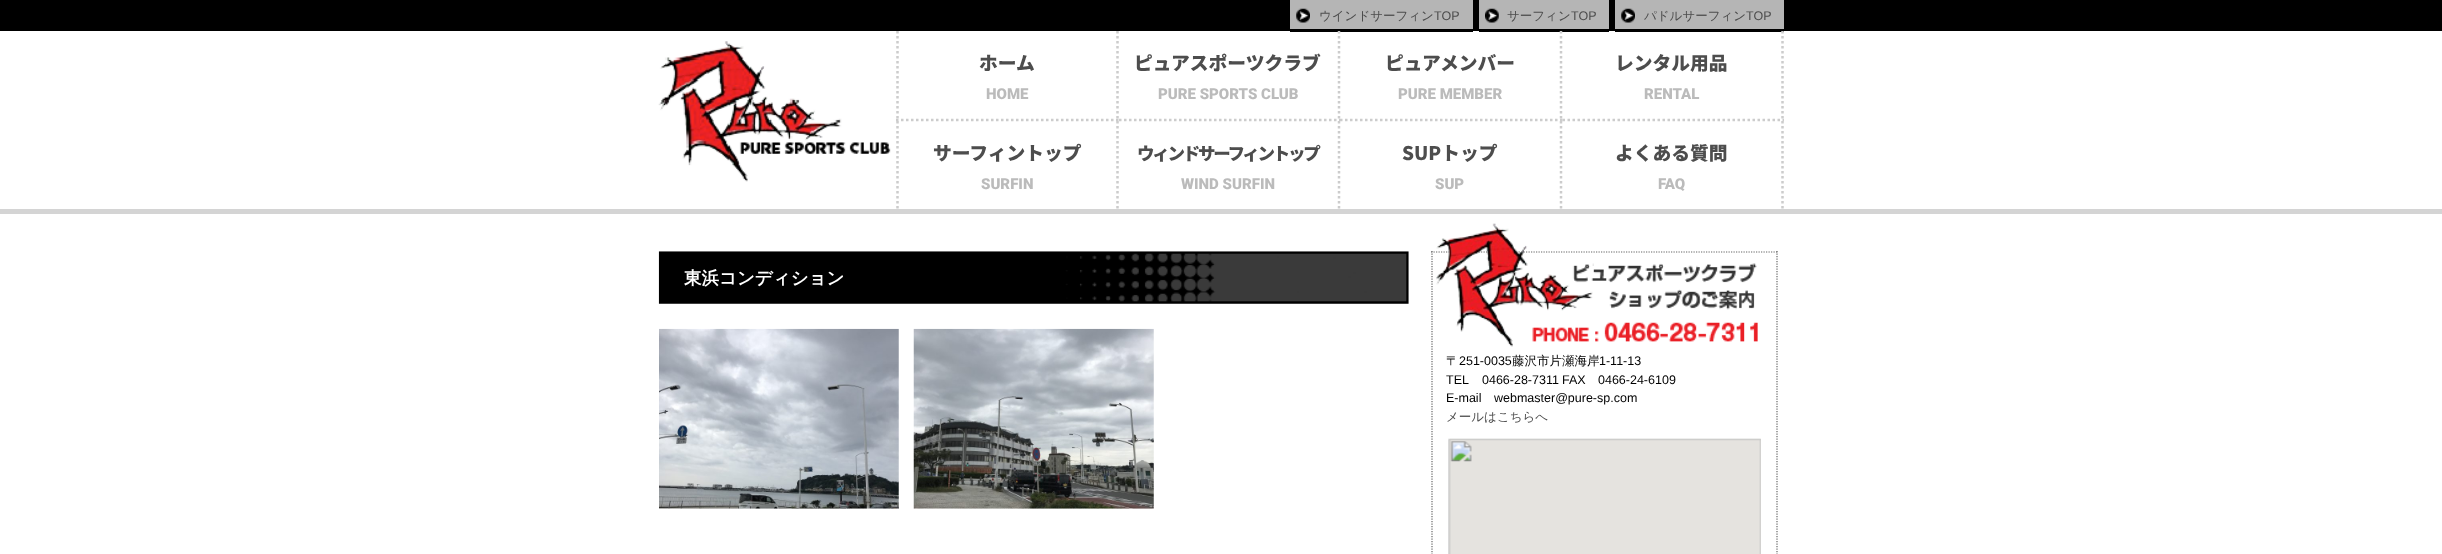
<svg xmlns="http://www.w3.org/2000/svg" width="2442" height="554">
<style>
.a{font:500 12.5px WenQuanYi Zen Hei;fill:#4d4d4d}
.b{font:12.5px Liberation Sans;fill:#4d4d4d}
.c{font:100 18.75px Noto Sans JP;fill:#4d4d4d}
.d{font:900 15px Roboto;fill:#bbb}
.e{font:100 17.5px Noto Sans JP;letter-spacing:-2.25px;fill:#4d4d4d}
.f{font:bold 17.5px WenQuanYi Zen Hei;fill:#fff}
.g{font:500 12.5px WenQuanYi Zen Hei;fill:#000}
.h{font:12.5px Liberation Sans;fill:#000}
</style>
<rect width="100%" height="100%" fill="#fff"/>
<path fill="#000" d="M0 0h2442v31H0z"/>
<path fill="#b5b5b5" d="M1290 0h183v29H1290z"/>
<image href="1.png" x="1296" y="8" width="14" height="15"/>
<path fill="#000" d="M1290 31h183v1H1290z"/>
<path fill="#b5b5b5" d="M1479 0h130v29H1479z"/>
<image href="2.png" x="1485" y="8" width="14" height="15"/>
<path fill="#000" d="M1479 31h130v1H1479z"/>
<path fill="#b5b5b5" d="M1615 0h169v29H1615z"/>
<image href="1.png" x="1621" y="8" width="14" height="15"/>
<path fill="#000" d="M1615 31h169v1H1615z"/>
<image href="3.png" x="658" y="41" width="233" height="141"/>
<path fill="none" stroke="#ccc" stroke-width="2.5" stroke-dasharray="2.5 2.5" d="M1117.5 31v90"/>
<path fill="none" stroke="#ccc" stroke-width="2.5" stroke-dasharray="2.5 2.5" d="M896 120h223"/>
<path fill="none" stroke="#ccc" stroke-width="2.5" stroke-dasharray="2.5 2.5" d="M897.5 31v90"/>
<path fill="none" stroke="#ccc" stroke-width="2.5" stroke-dasharray="2.5 2.5" d="M1339 31v90"/>
<path fill="none" stroke="#ccc" stroke-width="2.5" stroke-dasharray="2.5 2.5" d="M1119 120h221"/>
<path fill="none" stroke="#ccc" stroke-width="2.5" stroke-dasharray="2.5 2.5" d="M1561 31v90"/>
<path fill="none" stroke="#ccc" stroke-width="2.5" stroke-dasharray="2.5 2.5" d="M1340 120h222.5"/>
<path fill="none" stroke="#ccc" stroke-width="2.5" stroke-dasharray="2.5 2.5" d="M1782.5 31v90"/>
<path fill="none" stroke="#ccc" stroke-width="2.5" stroke-dasharray="2.5 2.5" d="M1562.5 120h221.5"/>
<path fill="none" stroke="#ccc" stroke-width="2.5" stroke-dasharray="2.5 2.5" d="M1117.5 121v88"/>
<path fill="none" stroke="#ccc" stroke-width="2.5" stroke-dasharray="2.5 2.5" d="M897.5 121v88"/>
<path fill="none" stroke="#ccc" stroke-width="2.5" stroke-dasharray="2.5 2.5" d="M1339 121v88"/>
<path fill="none" stroke="#ccc" stroke-width="2.5" stroke-dasharray="2.5 2.5" d="M1561 121v88"/>
<path fill="none" stroke="#ccc" stroke-width="2.5" stroke-dasharray="2.5 2.5" d="M1782.5 121v88"/>
<path fill="#d4d4d4" d="M0 209h2442v5H0z"/>
<image href="4.png" x="658" y="251" width="751" height="53"/>
<image href="5.png" x="659" y="328" width="240" height="181"/>
<image href="6.png" x="913" y="328" width="241" height="181"/>
<path fill="none" stroke="#666" stroke-width="1.2" stroke-dasharray="1.25 1.25" d="M1431 252h346.5"/>
<path fill="none" stroke="#666" stroke-width="1.2" stroke-dasharray="1.25 1.25" d="M1777 251v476.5"/>
<path fill="none" stroke="#666" stroke-width="1.2" stroke-dasharray="1.25 1.25" d="M1432 251v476.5"/>
<image href="7.png" x="1436" y="223" width="322" height="124"/>
<image href="8.png" x="1448" y="438" width="313" height="116"/>
<text class="a" x="1319" y="20">ウインドサーフィン</text>
<text class="b" x="1434" y="20">TOP</text>
<text class="a" x="1507" y="20">サーフィン</text>
<text class="b" x="1571" y="20">TOP</text>
<text class="a" x="1644" y="20">パドルサーフィン</text>
<text class="b" x="1746" y="20">TOP</text>
<text class="c" x="979" y="70">ホーム</text>
<text class="d" x="986" y="99">HOME</text>
<text class="c" x="1134" y="70">ピュアスポーツクラブ</text>
<text class="d" x="1158" y="99">PURE SPORTS CLUB</text>
<text class="c" x="1385" y="70">ピュアメンバー</text>
<text class="d" x="1398" y="99">PURE MEMBER</text>
<text class="c" x="1615" y="70">レンタル用品</text>
<text class="d" x="1644" y="99">RENTAL</text>
<text class="c" x="933" y="160">サーフィントップ</text>
<text class="d" x="981" y="189">SURFIN</text>
<text class="e" x="1137" y="160">ウィンドサーフィントップ</text>
<text class="d" x="1181" y="189">WIND SURFIN</text>
<text class="c" x="1402" y="160">SUPトップ</text>
<text class="d" x="1435" y="189">SUP</text>
<text class="c" x="1615" y="160">よくある質問</text>
<text class="d" x="1658" y="189">FAQ</text>
<text class="f" x="684" y="284">東浜コンディション</text>
<text class="g" x="1446" y="365">〒</text>
<text class="h" x="1459" y="365">251-0035</text>
<text class="g" x="1512" y="365">藤沢市片瀬海岸</text>
<text class="h" x="1599" y="365">1-11-13</text>
<text class="h" x="1446" y="384">TEL</text>
<text class="h" x="1482" y="384">0466-28-7311</text>
<text class="h" x="1562" y="384">FAX</text>
<text class="h" x="1598" y="384">0466-24-6109</text>
<text class="h" x="1446" y="402">E-mail</text>
<text class="h" x="1494" y="402">webmaster@pure-sp.com</text>
<text class="a" x="1446" y="421">メールはこちらへ</text>
</svg>
